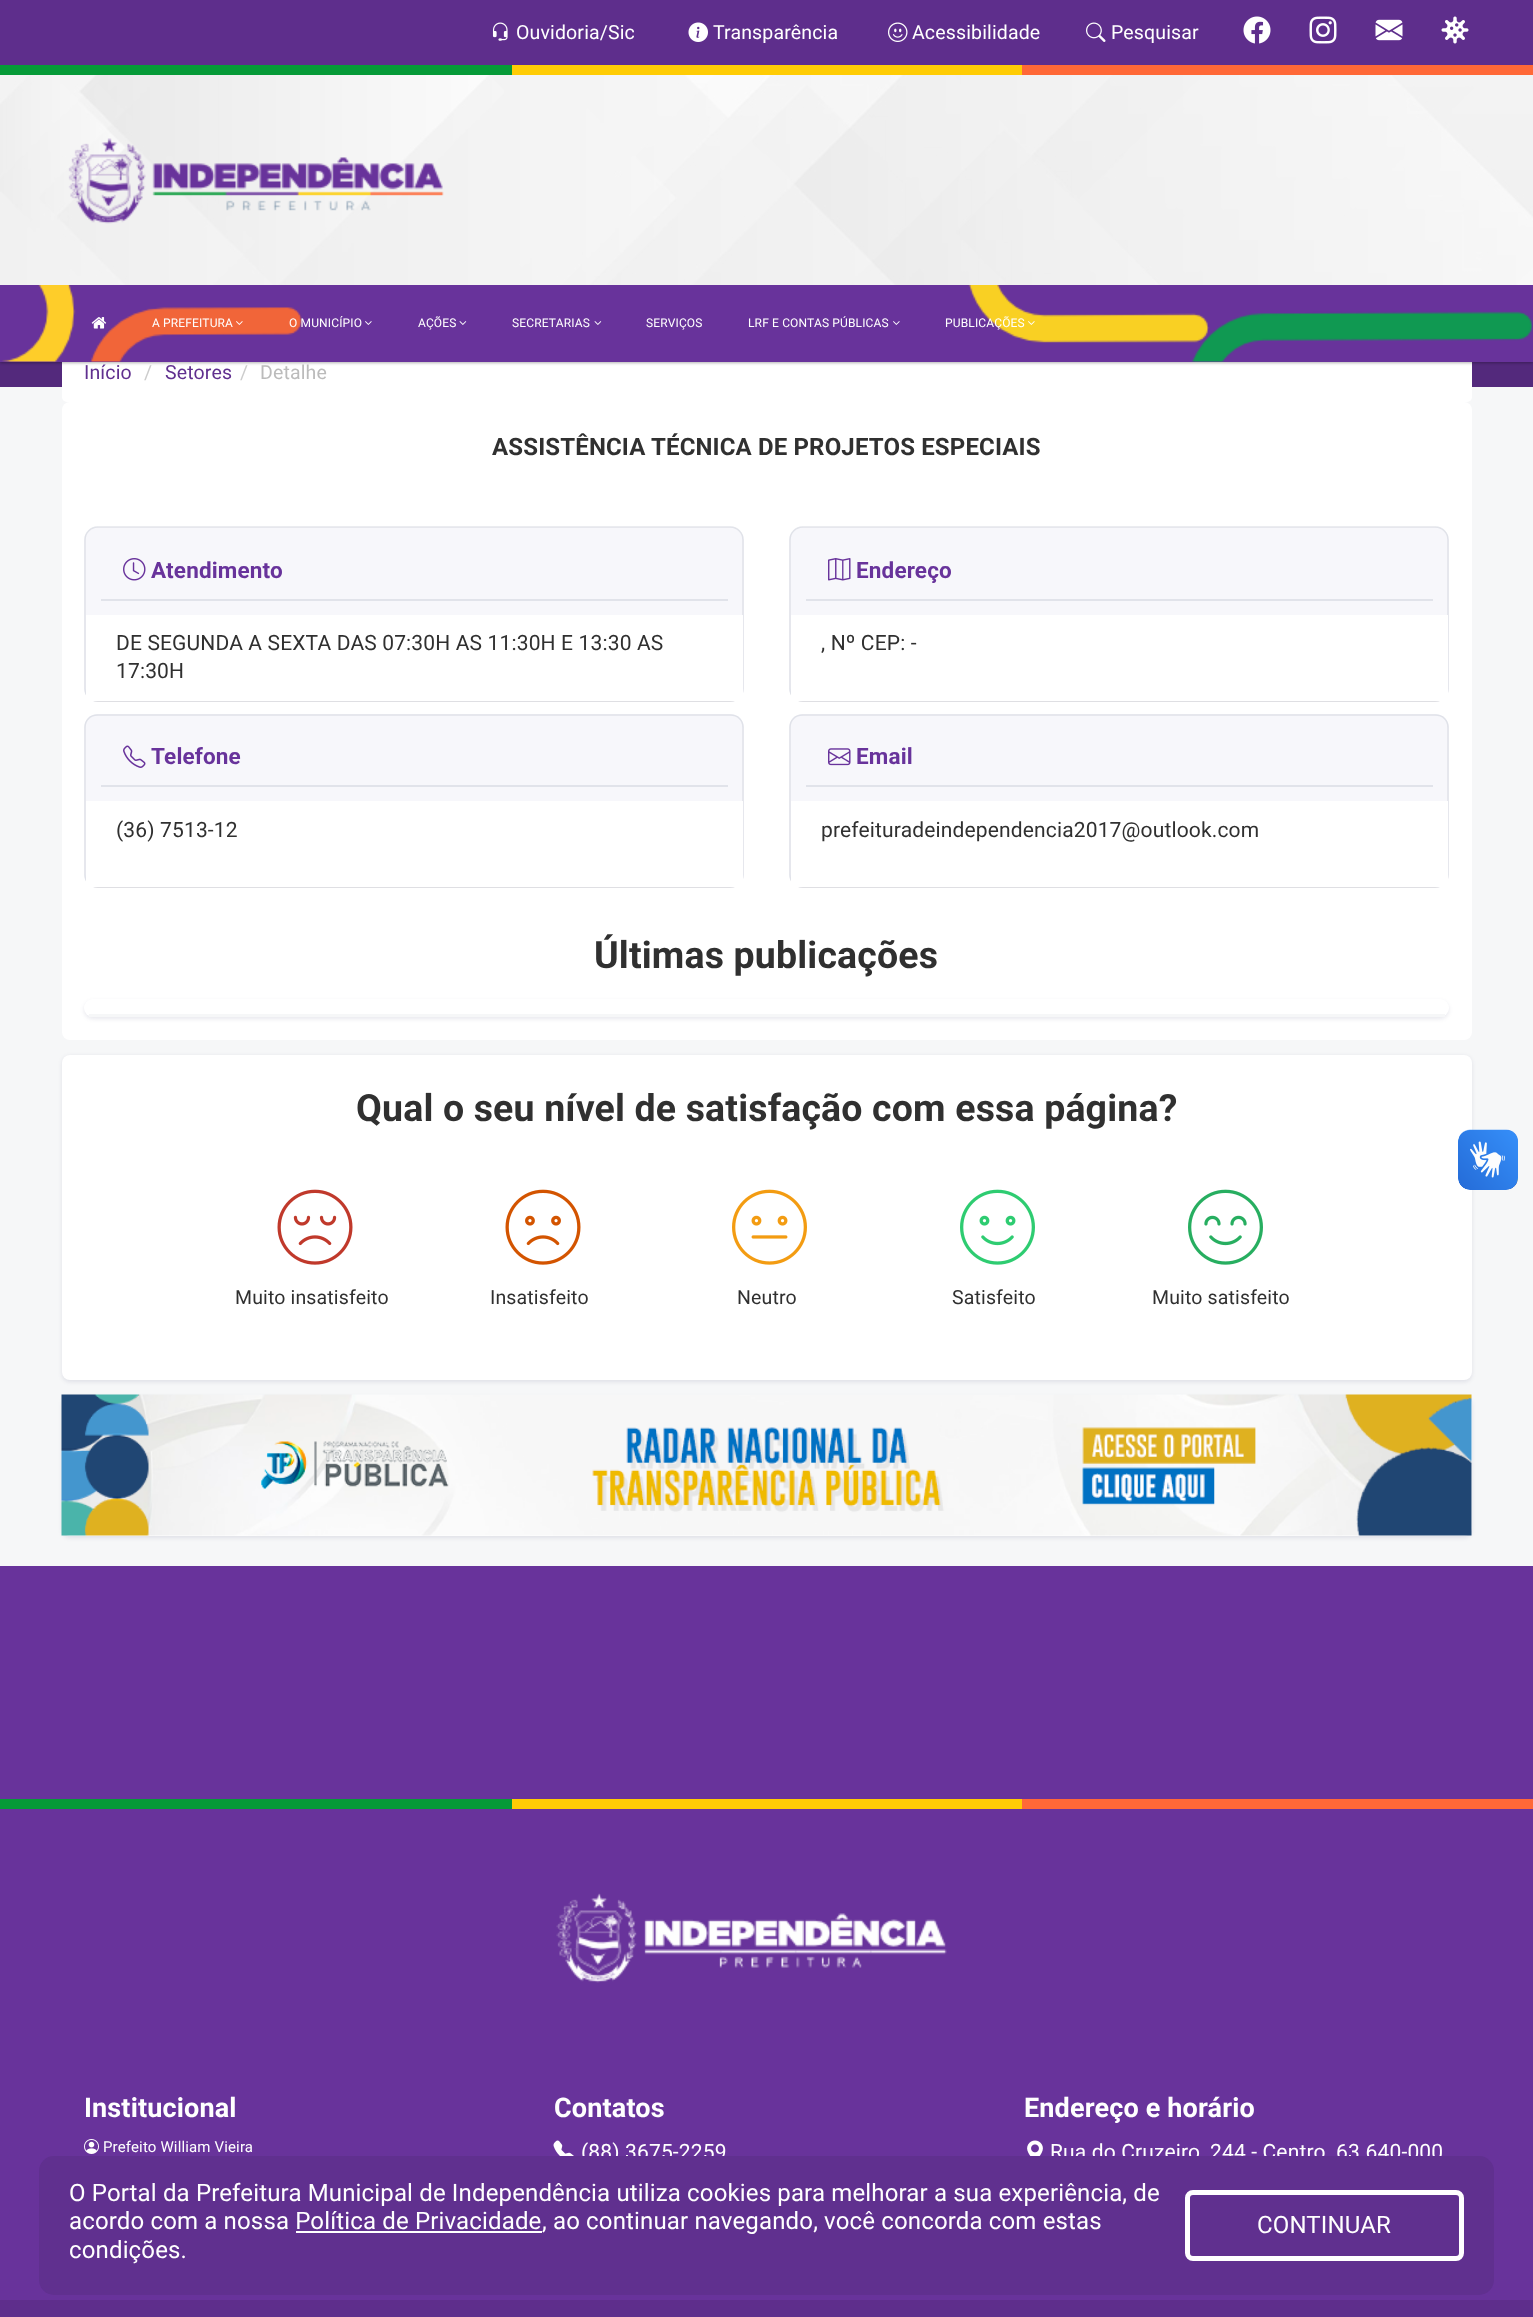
<svg xmlns="http://www.w3.org/2000/svg" width="1533" height="2317">
<style>
.a{font:19.5px Roboto;letter-spacing:0.15px;fill:#fff}
.b{font:12px Roboto;letter-spacing:0.15px;fill:#fff}
.c{font:19.5px Roboto;letter-spacing:0.15px;fill:#60308f}
.d{font:19.5px Roboto;letter-spacing:0.15px;fill:#ccc}
.e{font:19.5px Roboto;letter-spacing:0.15px;fill:#bbb}
.f{font:bold 24px Roboto;letter-spacing:0.15px;fill:#303030}
.g{font:bold 22.5px Roboto;letter-spacing:0.15px;fill:#68339b}
.h{font:21px Roboto;letter-spacing:0.15px;fill:#303030}
.i{font:bold 37.5px Roboto;letter-spacing:0.15px;fill:#303030}
.j{font:19.5px Roboto;letter-spacing:0.15px;fill:#303030}
.k{font:bold 27px Roboto;letter-spacing:0.15px;fill:#fff}
.l{font:15px Roboto;letter-spacing:0.15px;fill:#fff}
.m{font:21px Roboto;letter-spacing:0.15px;fill:#fff}
.n{font:24px Roboto;letter-spacing:0.15px;fill:#fff}
</style>
<rect width="100%" height="100%" fill="#f6f7f8"/>
<path fill="#53297c" d="M0 362h1533v25H0z"/>
<rect fill="#fff" x="62" y="342" width="1410" height="60" rx="5"/>
<path fill="#0000004d" filter="blur(1.5px)" d="M0 2h1533v361H0z"/>
<image href="1.png" x="0" y="75" width="1533" height="210"/>
<path fill="#5e2e8c" d="M0 0h1533v65H0z"/>
<image href="2.png" x="492" y="22" width="16" height="19"/>
<image href="3.png" x="688" y="22" width="20" height="20"/>
<image href="4.png" x="888" y="22" width="20" height="20"/>
<image href="5.png" x="1086" y="22" width="20" height="20"/>
<image href="6.png" x="1243" y="16" width="28" height="28"/>
<image href="7.png" x="1309" y="16" width="28" height="28"/>
<image href="8.png" x="1375" y="19" width="28" height="22"/>
<image href="9.png" x="1441" y="16" width="28" height="28"/>
<path fill="#069a38" d="M0 65h512v10H0z"/>
<path fill="#ffcc04" d="M512 65h510v10H512z"/>
<path fill="#ff6837" d="M1022 65h511v10H1022z"/>
<image href="10.png" x="68" y="138" width="376" height="86"/>
<path fill="#68339b" d="M0 285h1533v77H0z"/>
<image href="11.png" x="2" y="285" width="1531" height="77"/>
<image href="12.png" x="91" y="317" width="16" height="12"/>
<image href="13.png" x="236" y="321" width="7" height="4"/>
<image href="14.png" x="365" y="321" width="7" height="4"/>
<image href="15.png" x="459" y="321" width="8" height="4"/>
<image href="15.png" x="594" y="321" width="8" height="4"/>
<image href="14.png" x="893" y="321" width="7" height="4"/>
<image href="16.png" x="1028" y="321" width="7" height="4"/>
<rect fill="#fff" x="62" y="402" width="1410" height="638" rx="8"/>
<rect fill="#f7f7fb" x="84" y="527" width="660" height="175" rx="14"/>
<path fill="none" stroke="#d8d8dc" stroke-width="1.5" d="M739.5 697.5c-2.5 2.5-5.5 3.5-9 3.5h-633c-3.5 0-6.5-1-9-3.5"/>
<path fill="none" stroke="#caced880" stroke-width="1.5" d="M88.5 697.5c-2.5-2.5-3.5-5.5-3.5-9v-148.5c0-3.5 1-6.5 3.5-9c2.5-2.5 5.5-4 9-4h633c3.5 0 6.5 1.5 9 4c2.5 2.5 3.5 5.5 3.5 9v148.5c0 3.5-1 6.5-3.5 9"/>
<path fill="#e1e3ea" d="M101 599h627v2H101z"/>
<image href="17.png" x="123" y="558" width="23" height="23"/>
<path fill="#fff" d="M86 615h657v86H86z"/>
<rect fill="#f7f7fb" x="789" y="527" width="660" height="175" rx="14"/>
<path fill="none" stroke="#d8d8dc" stroke-width="1.5" d="M1444.5 697.5c-2.5 2.5-5.5 3.5-9 3.5h-633c-3.5 0-6.5-1-9-3.5"/>
<path fill="none" stroke="#caced880" stroke-width="1.5" d="M793.5 697.5c-2.5-2.5-3.5-5.5-3.5-9v-148.5c0-3.5 1-6.5 3.5-9c2.5-2.5 5.5-4 9-4h633c3.5 0 6.5 1.5 9 4c2.5 2.5 3.5 5.5 3.5 9v148.5c0 3.5-1 6.5-3.5 9"/>
<path fill="#e1e3ea" d="M806 599h627v2H806z"/>
<image href="18.png" x="828" y="558" width="23" height="23"/>
<path fill="#fff" d="M791 615h657v86H791z"/>
<rect fill="#f7f7fb" x="84" y="714" width="660" height="174" rx="14"/>
<path fill="none" stroke="#d8d8dc" stroke-width="1.5" d="M739.5 883.5c-2.5 2.5-5.5 3.5-9 3.5h-633c-3.5 0-6.5-1-9-3.5"/>
<path fill="none" stroke="#caced880" stroke-width="1.5" d="M88.5 883.5c-2.5-2.5-3.5-5.5-3.5-9v-147c0-3.5 1-6.5 3.5-9c2.5-2.5 5.5-3.5 9-3.5h633c3.5 0 6.5 1 9 3.5c2.5 2.5 3.5 5.5 3.5 9v147c0 3.5-1 6.5-3.5 9"/>
<path fill="#e1e3ea" d="M101 785h627v2H101z"/>
<image href="19.png" x="123" y="745" width="23" height="23"/>
<path fill="#fff" d="M86 801h657v86H86z"/>
<rect fill="#f7f7fb" x="789" y="714" width="660" height="174" rx="14"/>
<path fill="none" stroke="#d8d8dc" stroke-width="1.5" d="M1444.5 883.5c-2.5 2.5-5.5 3.5-9 3.5h-633c-3.5 0-6.5-1-9-3.5"/>
<path fill="none" stroke="#caced880" stroke-width="1.5" d="M793.5 883.5c-2.5-2.5-3.5-5.5-3.5-9v-147c0-3.5 1-6.5 3.5-9c2.5-2.5 5.5-3.5 9-3.5h633c3.5 0 6.5 1 9 3.5c2.5 2.5 3.5 5.5 3.5 9v147c0 3.5-1 6.5-3.5 9"/>
<path fill="#e1e3ea" d="M806 785h627v2H806z"/>
<image href="20.png" x="828" y="748" width="23" height="18"/>
<path fill="#fff" d="M791 801h657v86H791z"/>
<rect fill="#03004717" filter="blur(2px)" x="84" y="1001" width="1365" height="18" rx="9"/>
<rect fill="#fff" x="84" y="999" width="1365" height="18" rx="9"/>
<path fill="#f6f7f8" d="M89 1014h1356v3H89z"/>
<rect fill="#03004717" filter="blur(2px)" x="62" y="1056" width="1410" height="326" rx="8"/>
<rect fill="#fff" x="62" y="1055" width="1410" height="325" rx="8"/>
<image href="21.png" x="277" y="1189" width="76" height="76"/>
<image href="22.png" x="505" y="1189" width="76" height="76"/>
<image href="23.png" x="732" y="1189" width="75" height="76"/>
<image href="24.png" x="960" y="1189" width="75" height="76"/>
<image href="25.png" x="1188" y="1189" width="75" height="76"/>
<image href="26.png" x="1458" y="1129" width="60" height="61"/>
<image href="27.png" x="1458" y="1130" width="60" height="60"/>
<rect fill="#03004717" filter="blur(2px)" x="62" y="1397" width="1410" height="141" rx="8"/>
<rect fill="#fff" x="62" y="1395" width="1410" height="141" rx="8"/>
<image href="28.png" x="61" y="1394" width="1411" height="142"/>
<path fill="#68339b" d="M0 1566h1533v734H0z"/>
<path fill="#069a38" d="M0 1799h512v10H0z"/>
<path fill="#ffcc04" d="M512 1799h510v10H512z"/>
<path fill="#ff6837" d="M1022 1799h511v10H1022z"/>
<image href="29.png" x="556" y="1893" width="391" height="90"/>
<image href="30.png" x="84" y="2139" width="15" height="15"/>
<image href="31.png" x="553" y="2140" width="21" height="16"/>
<image href="32.png" x="1027" y="2140" width="16" height="16"/>
<path fill="#5e2e8c" d="M0 2300h1533v17H0z"/>
<text class="a" x="516" y="39">Ouvidoria/Sic</text>
<text class="a" x="713" y="39">Transparência</text>
<text class="a" x="912" y="39">Acessibilidade</text>
<text class="a" x="1111" y="39">Pesquisar</text>
<text class="b" x="152" y="327">A PREFEITURA</text>
<text class="b" x="289" y="327">O MUNICÍPIO</text>
<text class="b" x="418" y="327">AÇÕES</text>
<text class="b" x="512" y="327">SECRETARIAS</text>
<text class="b" x="646" y="327">SERVIÇOS</text>
<text class="b" x="748" y="327">LRF E CONTAS PÚBLICAS</text>
<text class="b" x="945" y="327">PUBLICAÇÕES</text>
<text class="c" x="84" y="379">Início</text>
<text class="d" x="144" y="379">/</text>
<text class="c" x="165" y="379">Setores</text>
<text class="d" x="240" y="379">/</text>
<text class="e" x="260" y="379">Detalhe</text>
<text class="f" x="492" y="455">ASSISTÊNCIA TÉCNICA DE PROJETOS ESPECIAIS</text>
<text class="g" x="151" y="578">Atendimento</text>
<text class="h" x="116" y="650">DE SEGUNDA A SEXTA DAS 07:30H AS 11:30H E 13:30 AS</text>
<text class="h" x="116" y="678">17:30H</text>
<text class="g" x="856" y="578">Endereço</text>
<text class="h" x="821" y="650">, Nº CEP: -</text>
<text class="g" x="151" y="764">Telefone</text>
<text class="h" x="116" y="837">(36) 7513-12</text>
<text class="g" x="856" y="764">Email</text>
<text class="h" x="821" y="837">prefeituradeindependencia2017@outlook.com</text>
<text class="i" x="594" y="968">Últimas publicações</text>
<text class="i" x="356" y="1121">Qual o seu nível de satisfação com essa página?</text>
<text class="j" x="235" y="1304">Muito insatisfeito</text>
<text class="j" x="490" y="1304">Insatisfeito</text>
<text class="j" x="737" y="1304">Neutro</text>
<text class="j" x="952" y="1304">Satisfeito</text>
<text class="j" x="1152" y="1304">Muito satisfeito</text>
<text class="k" x="84" y="2117">Institucional</text>
<text class="l" x="103" y="2152">Prefeito William Vieira</text>
<text class="k" x="554" y="2117">Contatos</text>
<text class="m" x="581" y="2159">(88) 3675-2259</text>
<text class="k" x="1024" y="2117">Endereço e horário</text>
<text class="m" x="1050" y="2159">Rua do Cruzeiro</text>
<text class="m" x="1210" y="2159">244 - Centro</text>
<text class="m" x="1336" y="2159">63.640-000</text>
<rect fill="#60308f" x="39" y="2156" width="1455" height="139" rx="15"/>
<text class="n" x="69" y="2201">O Portal da Prefeitura Municipal de Independência utiliza cookies para melhorar a sua experiência, de</text>
<text class="n" x="69" y="2229">acordo com a nossa Política de Privacidade</text>
<path fill="#fff" d="M296 2231h246v2H296z"/>
<text class="n" x="542" y="2229">, ao continuar navegando, você concorda com estas</text>
<text class="n" x="69" y="2258">condições.</text>
<rect fill="none" stroke="#fff" stroke-width="5" x="1187.5" y="2192.5" width="274" height="66" rx="5.5"/>
<text class="n" x="1257" y="2233">CONTINUAR</text>
</svg>
